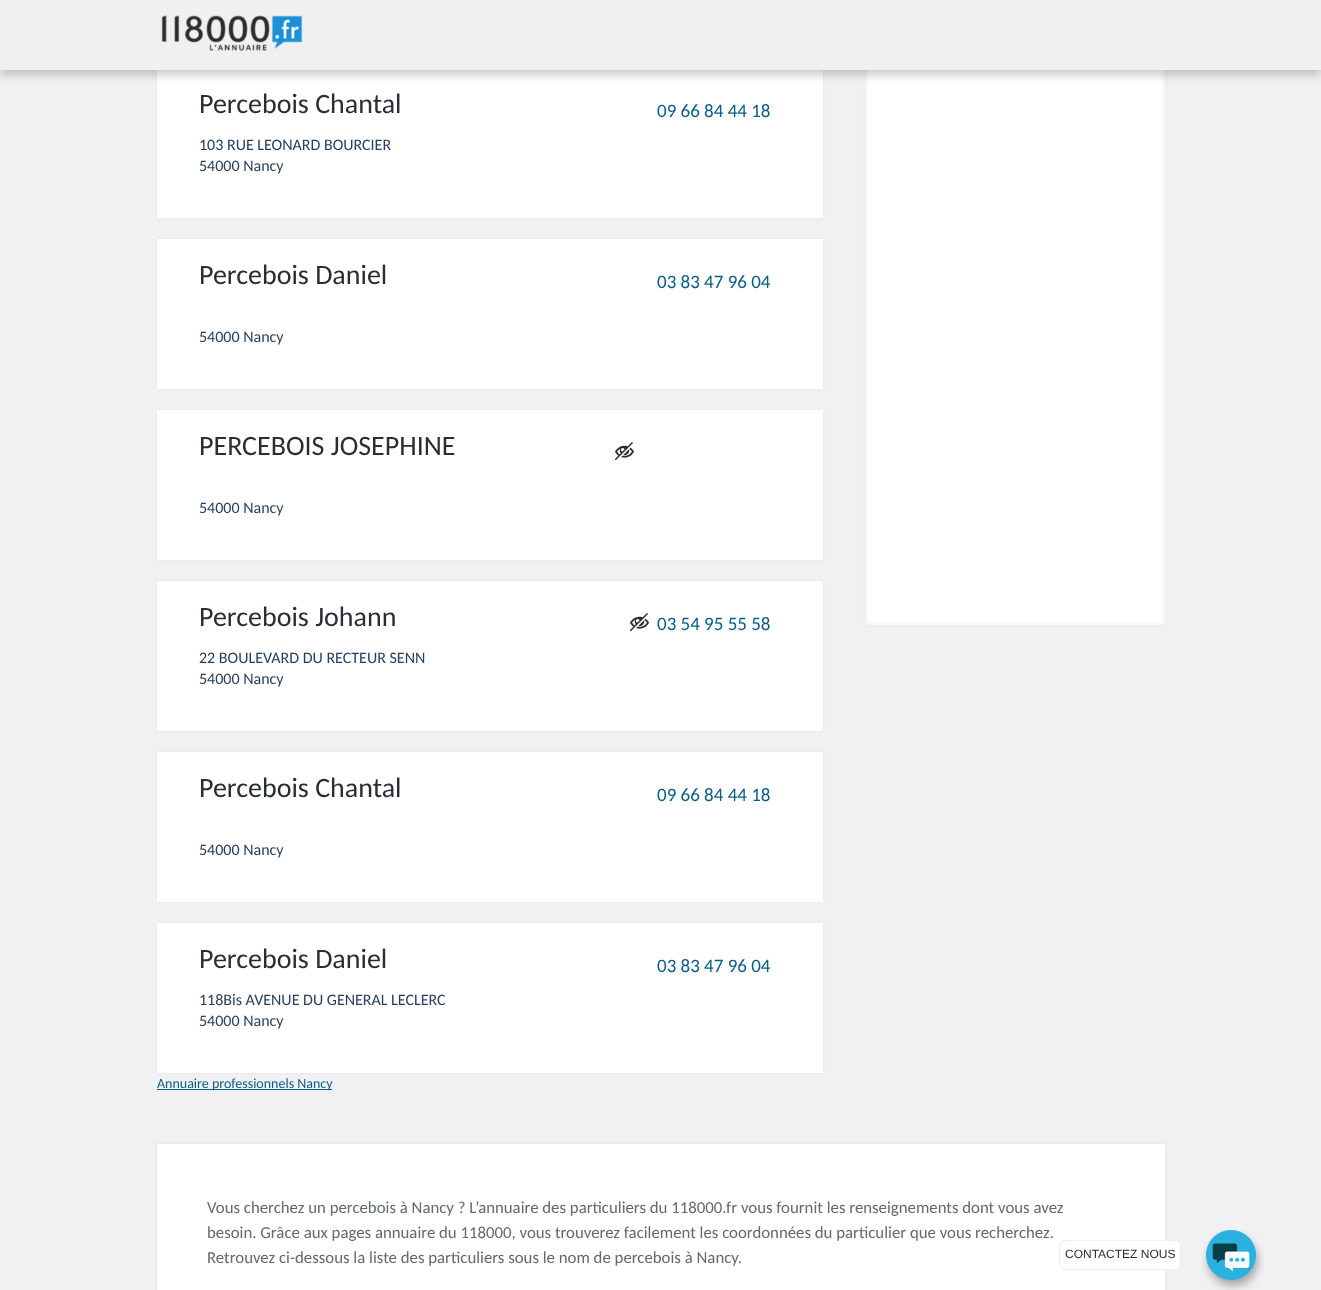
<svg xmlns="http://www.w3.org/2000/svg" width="1321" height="1290">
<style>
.a{font:28px Carlito;fill:#292e35}
.b{font:16px Carlito;fill:#263f5f}
.c{font:19px Carlito;fill:#0a5d85}
.d{font:14px Carlito;fill:#0a5d85}
.e{font:16.8px Carlito;fill:#636973}
.f{font:12px Liberation Sans;fill:#2c2c2c}
</style>
<rect width="100%" height="100%" fill="#f1f1f3"/>
<path fill="#292e3514" filter="blur(1.5px)" d="M157 68h666v150H157z"/>
<path fill="#fff" d="M157 70h666v148H157z"/>
<rect fill="#292e3514" filter="blur(1.5px)" x="865" y="5" width="300" height="620" rx="3"/>
<rect fill="#fff" stroke="#f8f8fa" stroke-width="3" x="866.5" y="6.5" width="297" height="617" rx="1.5"/>
<path fill="#2b2b2b40" filter="blur(5px)" d="M0 5h1321v70H0z"/>
<path fill="#f0f0f0" d="M0 0h1321v70H0z"/>
<image href="1.png" x="161" y="15" width="142" height="36"/>
<path fill="#292e3514" filter="blur(1.5px)" d="M157 239h666v150H157z"/>
<path fill="#fff" d="M157 239h666v150H157z"/>
<path fill="#292e3514" filter="blur(1.5px)" d="M157 410h666v150H157z"/>
<path fill="#fff" d="M157 410h666v150H157z"/>
<image href="2.png" x="615" y="442" width="19" height="18"/>
<path fill="#292e3514" filter="blur(1.5px)" d="M157 581h666v150H157z"/>
<path fill="#fff" d="M157 581h666v150H157z"/>
<image href="2.png" x="630" y="613" width="19" height="18"/>
<path fill="#292e3514" filter="blur(1.5px)" d="M157 752h666v150H157z"/>
<path fill="#fff" d="M157 752h666v150H157z"/>
<path fill="#292e3514" filter="blur(1.5px)" d="M157 923h666v150H157z"/>
<path fill="#fff" d="M157 923h666v150H157z"/>
<path fill="#0a5d85" d="M157 1089h175v1H157z"/>
<path fill="#292e3514" filter="blur(2px)" d="M157 1144h1008v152H157z"/>
<path fill="#fff" d="M157 1144h1008v146H157z"/>
<rect fill="#fff" stroke="#eee" x="1059.5" y="1240.5" width="121" height="29" rx="5.5"/>
<image href="3.png" x="1202" y="1230" width="62" height="60"/>
<text class="a" x="199" y="113">Percebois Chantal</text>
<text class="b" x="199" y="150">103 RUE LEONARD BOURCIER</text>
<text class="b" x="199" y="171">54000 Nancy</text>
<text class="c" x="657" y="117">09 66 84 44 18</text>
<text class="a" x="199" y="284">Percebois Daniel</text>
<text class="b" x="199" y="342">54000 Nancy</text>
<text class="c" x="657" y="288">03 83 47 96 04</text>
<text class="a" x="199" y="455">PERCEBOIS JOSEPHINE</text>
<text class="b" x="199" y="513">54000 Nancy</text>
<text class="a" x="199" y="626">Percebois Johann</text>
<text class="b" x="199" y="663">22 BOULEVARD DU RECTEUR SENN</text>
<text class="b" x="199" y="684">54000 Nancy</text>
<text class="c" x="657" y="630">03 54 95 55 58</text>
<text class="a" x="199" y="797">Percebois Chantal</text>
<text class="b" x="199" y="855">54000 Nancy</text>
<text class="c" x="657" y="801">09 66 84 44 18</text>
<text class="a" x="199" y="968">Percebois Daniel</text>
<text class="b" x="199" y="1005">118Bis AVENUE DU GENERAL LECLERC</text>
<text class="b" x="199" y="1026">54000 Nancy</text>
<text class="c" x="657" y="972">03 83 47 96 04</text>
<text class="d" x="157" y="1088">Annuaire professionnels Nancy</text>
<text class="e" x="207" y="1213">Vous cherchez un percebois à Nancy ? L’annuaire des particuliers du 118000.fr vous fournit les renseignements dont vous avez</text>
<text class="e" x="207" y="1238">besoin. Grâce aux pages annuaire du 118000, vous trouverez facilement les coordonnées du particulier que vous recherchez.</text>
<text class="e" x="207" y="1263">Retrouvez ci-dessous la liste des particuliers sous le nom de percebois à Nancy.</text>
<text class="f" x="1065" y="1258">CONTACTEZ NOUS</text>
</svg>
